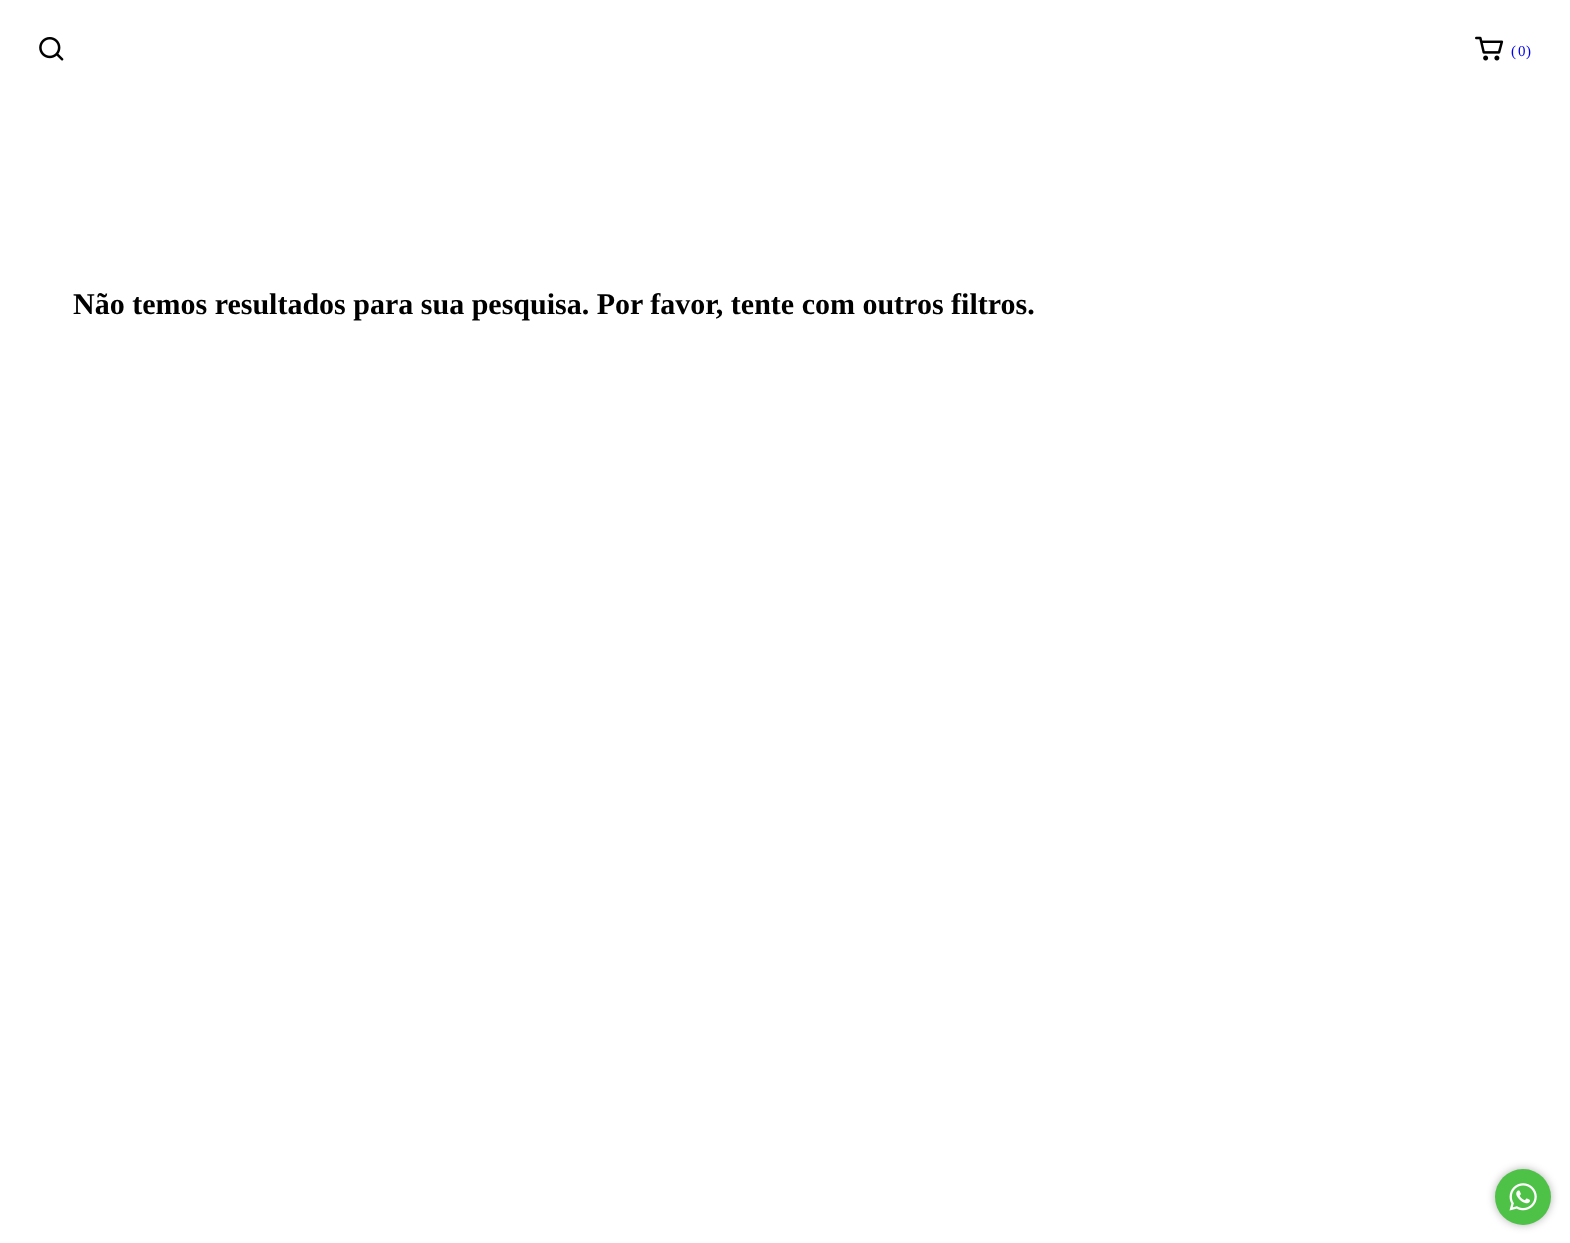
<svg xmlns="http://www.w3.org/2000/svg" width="1570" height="1243">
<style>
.a{font:15px Liberation Serif;fill:#00e}
.b{font:bold 30px Liberation Serif;fill:#000}
</style>
<rect width="100%" height="100%" fill="#fff"/>
<image href="1.png" x="39" y="37" width="25" height="24"/>
<image href="2.png" x="1475" y="36" width="29" height="25"/>
<rect fill="#0000004d" filter="blur(4px)" x="1495" y="1169" width="56" height="56" rx="28"/>
<circle fill="#4dc247" cx="1523" cy="1197" r="28"/>
<image href="3.png" x="1509" y="1183" width="28" height="28"/>
<text class="a" x="1511" y="56">(</text>
<text class="a" x="1518" y="56">0</text>
<text class="a" x="1526" y="56">)</text>
<text class="b" x="73" y="314">Não temos resultados para sua pesquisa. Por favor, tente com outros filtros.</text>
</svg>
